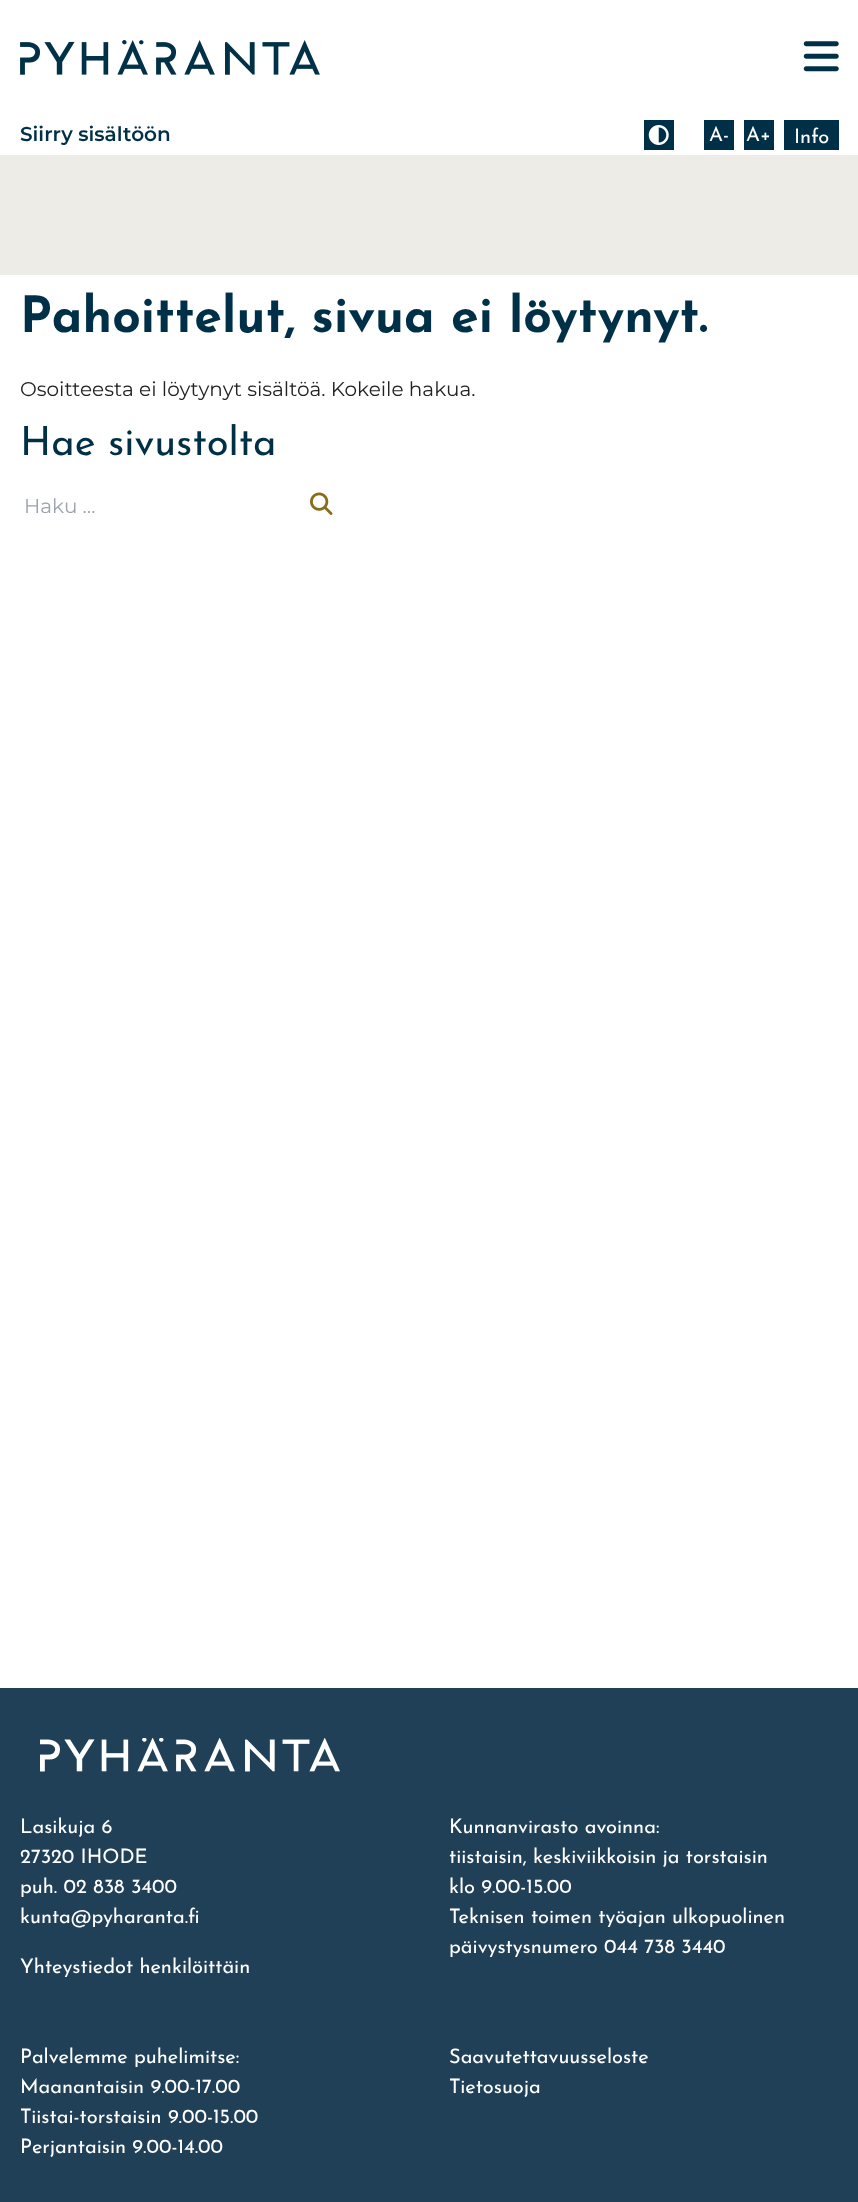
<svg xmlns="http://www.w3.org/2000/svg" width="858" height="2202">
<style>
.a{font:600 20px Montserrat;fill:#003047}
.b{font:20px Josefin Sans;fill:#fff}
.c{font:bold 50px Josefin Sans;fill:#003047}
.d{font:20px Montserrat;fill:#222}
.e{font:40px Josefin Sans;fill:#003047}
.f{font:20px Montserrat;fill:#9ca3af}
</style>
<rect width="100%" height="100%" fill="#fff"/>
<path fill="#edece6" d="M0 155h858v120H0z"/>
<image href="1.png" x="20" y="40" width="300" height="35"/>
<image href="2.png" x="803" y="41" width="36" height="31"/>
<path fill="#003047" d="M644 120h30v30H644z"/>
<image href="3.png" x="648" y="125" width="21" height="20"/>
<path fill="#003047" d="M704 120h30v30H704z"/>
<path fill="#003047" d="M744 120h30v30H744z"/>
<path fill="#003047" d="M784 120h55v30H784z"/>
<image href="4.png" x="310" y="492" width="23" height="23"/>
<path fill="#204057" d="M0 1688h858v514H0z"/>
<image href="5.png" x="40" y="1738" width="300" height="34"/>
<text class="a" x="20" y="141">Siirry sisältöön</text>
<text class="b" x="709" y="141">A-</text>
<text class="b" x="746" y="141">A+</text>
<text class="b" x="794" y="143">Info</text>
<text class="c" x="20" y="332">Pahoittelut, sivua ei löytynyt.</text>
<text class="d" x="20" y="396">Osoitteesta ei löytynyt sisältöä. Kokeile hakua.</text>
<text class="e" x="20" y="455">Hae sivustolta</text>
<text class="f" x="24" y="513">Haku …</text>
<text class="b" x="20" y="1833">Lasikuja 6</text>
<text class="b" x="20" y="1863">27320 IHODE</text>
<text class="b" x="20" y="1893">puh. 02 838 3400</text>
<text class="b" x="20" y="1923">kunta@pyharanta.fi</text>
<text class="b" x="20" y="1973">Yhteystiedot henkilöittäin</text>
<text class="b" x="449" y="1833">Kunnanvirasto avoinna:</text>
<text class="b" x="449" y="1863">tiistaisin, keskiviikkoisin ja torstaisin</text>
<text class="b" x="449" y="1893">klo 9.00-15.00</text>
<text class="b" x="449" y="1923">Teknisen toimen työajan ulkopuolinen</text>
<text class="b" x="449" y="1953">päivystysnumero 044 738 3440</text>
<text class="b" x="20" y="2063">Palvelemme puhelimitse:</text>
<text class="b" x="20" y="2093">Maanantaisin 9.00-17.00</text>
<text class="b" x="20" y="2123">Tiistai-torstaisin 9.00-15.00</text>
<text class="b" x="20" y="2153">Perjantaisin 9.00-14.00</text>
<text class="b" x="449" y="2063">Saavutettavuusseloste</text>
<text class="b" x="449" y="2093">Tietosuoja</text>
</svg>
